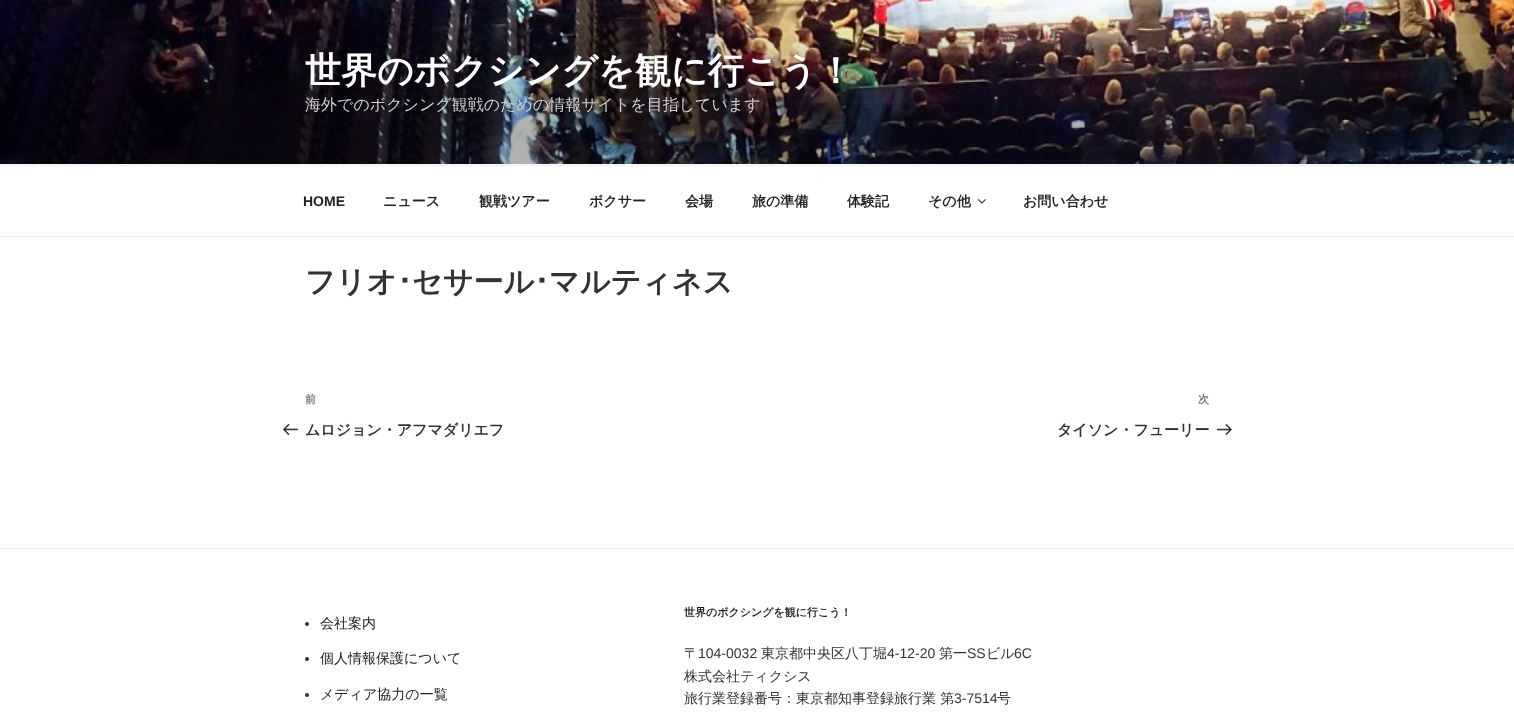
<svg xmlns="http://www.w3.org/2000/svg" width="1514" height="719">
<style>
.a{font:bold 36px WenQuanYi Zen Hei;fill:#fff}
.b{font:500 16px WenQuanYi Zen Hei;fill:#d2d2d3}
.c{font:bold 14px Liberation Sans;fill:#222}
.d{font:bold 14px WenQuanYi Zen Hei;fill:#222}
.e{font:bold 30px WenQuanYi Zen Hei;fill:#333}
.f{font:bold 30px IPAPGothic;fill:#333}
.g{font:bold 11px WenQuanYi Zen Hei;fill:#767676}
.h{font:bold 15px WenQuanYi Zen Hei;fill:#333}
.i{font:500 14px WenQuanYi Zen Hei;fill:#222}
.j{font:bold 11px WenQuanYi Zen Hei;fill:#222}
.k{font:500 14px WenQuanYi Zen Hei;fill:#333}
.l{font:14px Liberation Sans;fill:#333}
</style>
<rect width="100%" height="100%" fill="#fff"/>
<path fill="#fafafa" d="M0 164h1514v1H0z"/>
<image href="1.png" x="0" y="0" width="1514" height="164"/>
<path fill="#eee" d="M0 165h1514v1H0z"/>
<path fill="#eee" d="M0 236h1514v1H0z"/>
<image href="2.png" x="978" y="199" width="8" height="5"/>
<image href="3.png" x="283" y="424" width="15" height="11"/>
<image href="4.png" x="1217" y="424" width="15" height="12"/>
<path fill="#eee" d="M0 548h1514v1H0z"/>
<circle fill="#333" cx="307" cy="624" r="2"/>
<circle fill="#333" cx="307" cy="659" r="2"/>
<circle fill="#333" cx="307" cy="695" r="2"/>
<text class="a" x="305" y="83">世界のボクシングを観に行こう！</text>
<text class="b" x="305" y="110">海外でのボクシング観戦のための情報サイトを目指しています</text>
<text class="c" x="303" y="206">HOME</text>
<text class="d" x="383" y="206">ニュース</text>
<text class="d" x="479" y="206">観戦ツアー</text>
<text class="d" x="589" y="206">ボクサー</text>
<text class="d" x="685" y="206">会場</text>
<text class="d" x="752" y="206">旅の準備</text>
<text class="d" x="847" y="206">体験記</text>
<text class="d" x="928" y="206">その他</text>
<text class="d" x="1023" y="206">お問い合わせ</text>
<text class="e" x="305" y="292">フリオ</text>
<text class="f" x="397" y="292">･</text>
<text class="e" x="412" y="292">セサール</text>
<text class="f" x="534" y="292">･</text>
<text class="e" x="549" y="292">マルティネス</text>
<text class="g" x="305" y="403">前</text>
<text class="h" x="305" y="435">ムロジョン・アフマダリエフ</text>
<text class="g" x="1198" y="403">次</text>
<text class="h" x="1057" y="435">タイソン・フューリー</text>
<text class="i" x="320" y="628">会社案内</text>
<text class="i" x="320" y="663">個人情報保護について</text>
<text class="i" x="320" y="699">メディア協力の一覧</text>
<text class="j" x="684" y="616">世界のボクシングを観に行こう！</text>
<text class="k" x="684" y="658">〒</text>
<text class="l" x="698" y="658">104-0032</text>
<text class="k" x="761" y="658">東京都中央区八丁堀</text>
<text class="l" x="887" y="658">4-12-20</text>
<text class="k" x="939" y="658">第一</text>
<text class="l" x="967" y="658">SS</text>
<text class="k" x="986" y="658">ビル</text>
<text class="l" x="1014" y="658">6C</text>
<text class="k" x="684" y="681">株式会社ティクシス</text>
<text class="k" x="684" y="703">旅行業登録番号：東京都知事登録旅行業 第</text>
<text class="l" x="954" y="703">3-7514</text>
<text class="k" x="997" y="703">号</text>
</svg>
